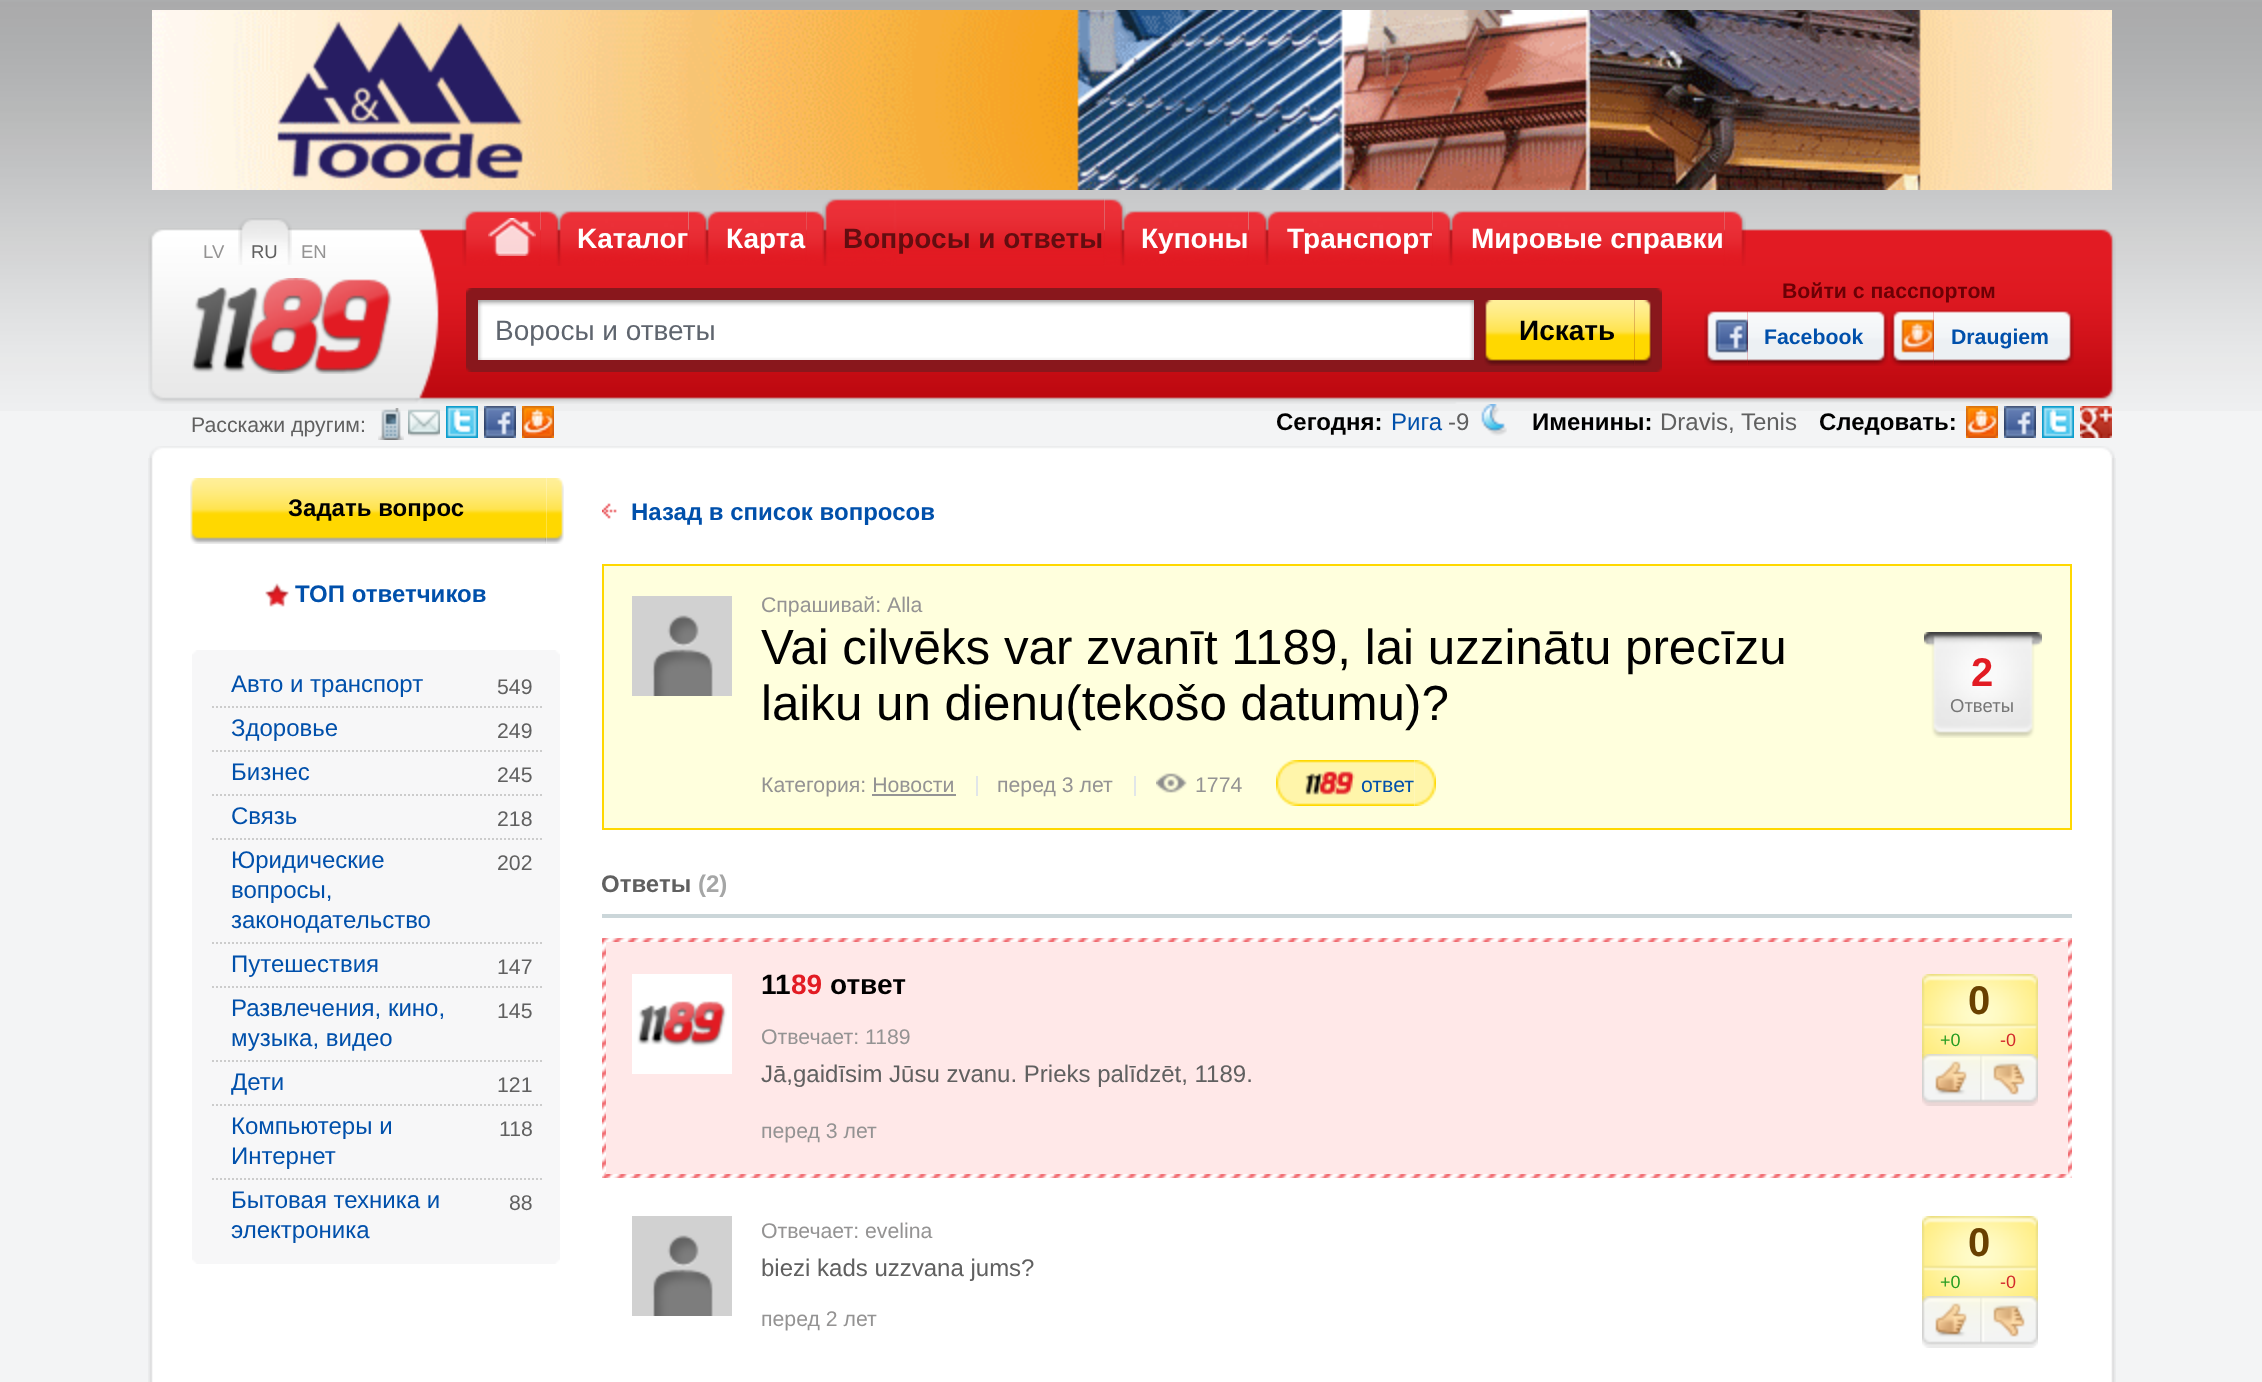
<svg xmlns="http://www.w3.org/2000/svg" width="2262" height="1382">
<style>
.a{font:18.5px Liberation Sans;fill:#949393}
.b{font:18.5px Liberation Sans;fill:#606060}
.c{font:bold 28px Liberation Sans;fill:#fff}
.d{font:bold 28px Liberation Sans;fill:#620d10}
.e{font:28px Liberation Sans;fill:#5f656e}
.f{font:bold 28px Liberation Sans;fill:#000}
.g{font:bold 21.25px Liberation Sans;fill:#6c0005}
.h{font:bold 21.25px Liberation Sans;fill:#0050ab}
.i{font:21.25px Liberation Sans;fill:#606060}
.j{font:bold 24px Liberation Sans;fill:#000}
.k{font:24px Liberation Sans;fill:#0050ab}
.l{font:24px Liberation Sans;fill:#606060}
.m{font:bold 24px Liberation Sans;fill:#0050ab}
.n{font:21.25px Liberation Sans;fill:#949393}
.o{font:49.3px Liberation Sans;fill:#000}
.p{font:21.25px Liberation Sans;fill:#0050ab}
.q{font:bold 40px Liberation Sans;fill:#e21b23}
.r{font:18.5px Liberation Sans;fill:#767676}
.s{font:bold 24px Liberation Sans;fill:#606060}
.t{font:bold 24px Liberation Sans;fill:#a5a6a6}
.u{font:bold 28px Liberation Sans;fill:#e21b23}
.v{font:bold 40px Liberation Sans;fill:#694000}
.w{font:18px Liberation Sans;fill:#279c21}
.x{font:18px Liberation Sans;fill:#d2282b}
</style>
<rect width="100%" height="100%" fill="#f3f4f5"/>
<image href="1.png" x="0" y="0" width="2262" height="411"/>
<image href="2.png" x="152" y="10" width="1960" height="180"/>
<image href="3.png" x="148" y="228" width="1968" height="176"/>
<image href="4.png" x="238" y="218" width="54" height="47"/>
<image href="5.png" x="539" y="210" width="23" height="56"/>
<image href="6.png" x="462" y="210" width="78" height="56"/>
<image href="7.png" x="488" y="218" width="48" height="38"/>
<image href="8.png" x="687" y="210" width="23" height="55"/>
<image href="9.png" x="556" y="210" width="132" height="56"/>
<image href="10.png" x="805" y="210" width="23" height="56"/>
<image href="11.png" x="704" y="210" width="102" height="55"/>
<image href="12.png" x="1103" y="198" width="23" height="67"/>
<image href="13.png" x="822" y="198" width="282" height="68"/>
<image href="14.png" x="1247" y="210" width="23" height="55"/>
<image href="15.png" x="1120" y="210" width="128" height="56"/>
<image href="5.png" x="1431" y="210" width="23" height="56"/>
<image href="16.png" x="1264" y="210" width="168" height="55"/>
<image href="5.png" x="1723" y="210" width="23" height="56"/>
<image href="17.png" x="1448" y="210" width="276" height="55"/>
<image href="18.png" x="192" y="278" width="200" height="96"/>
<image href="19.png" x="466" y="288" width="1196" height="84"/>
<image href="20.png" x="478" y="300" width="996" height="60"/>
<image href="21.png" x="1633" y="300" width="19" height="66"/>
<image href="22.png" x="1484" y="300" width="150" height="66"/>
<image href="23.png" x="1704" y="310" width="45" height="56"/>
<image href="24.png" x="1748" y="310" width="140" height="56"/>
<image href="25.png" x="1890" y="310" width="45" height="56"/>
<image href="24.png" x="1934" y="310" width="140" height="56"/>
<image href="26.png" x="378" y="408" width="26" height="32"/>
<image href="27.png" x="408" y="409" width="32" height="28"/>
<image href="28.png" x="446" y="406" width="32" height="32"/>
<image href="29.png" x="484" y="406" width="32" height="32"/>
<image href="30.png" x="522" y="406" width="32" height="32"/>
<image href="31.png" x="1481" y="404" width="26" height="32"/>
<image href="30.png" x="1966" y="406" width="32" height="32"/>
<image href="29.png" x="2004" y="406" width="32" height="32"/>
<image href="28.png" x="2042" y="406" width="32" height="32"/>
<image href="32.png" x="2080" y="406" width="32" height="32"/>
<image href="33.png" x="149" y="446" width="1966" height="12"/>
<image href="34.png" x="148" y="458" width="1968" height="924"/>
<image href="35.png" x="545" y="478" width="19" height="66"/>
<image href="36.png" x="190" y="478" width="356" height="66"/>
<image href="37.png" x="265" y="583" width="24" height="24"/>
<image href="38.png" x="192" y="650" width="368" height="12"/>
<path fill="#f7f7f8" d="M192 662h368v592H192z"/>
<path fill="none" stroke="#ccc" stroke-width="2" stroke-dasharray="2 2" d="M212 707h330"/>
<path fill="none" stroke="#ccc" stroke-width="2" stroke-dasharray="2 2" d="M212 751h330"/>
<path fill="none" stroke="#ccc" stroke-width="2" stroke-dasharray="2 2" d="M212 795h330"/>
<path fill="none" stroke="#ccc" stroke-width="2" stroke-dasharray="2 2" d="M212 839h330"/>
<path fill="none" stroke="#ccc" stroke-width="2" stroke-dasharray="2 2" d="M212 943h330"/>
<path fill="none" stroke="#ccc" stroke-width="2" stroke-dasharray="2 2" d="M212 987h330"/>
<path fill="none" stroke="#ccc" stroke-width="2" stroke-dasharray="2 2" d="M212 1061h330"/>
<path fill="none" stroke="#ccc" stroke-width="2" stroke-dasharray="2 2" d="M212 1105h330"/>
<path fill="none" stroke="#ccc" stroke-width="2" stroke-dasharray="2 2" d="M212 1179h330"/>
<image href="39.png" x="192" y="1254" width="368" height="10"/>
<image href="40.png" x="602" y="503" width="15" height="16"/>
<path fill="#ffd" stroke="#ffd800" stroke-width="2" d="M603 565h1468v264H603z"/>
<image href="41.png" x="632" y="596" width="100" height="100"/>
<path fill="#e1e6e9" d="M976 776h2v20H976z"/>
<path fill="#e1e6e9" d="M1134 776h2v20H1134z"/>
<image href="42.png" x="1156" y="773" width="31" height="20"/>
<image href="43.png" x="1414" y="760" width="22" height="46"/>
<image href="44.png" x="1276" y="760" width="138" height="46"/>
<image href="45.png" x="1924" y="632" width="118" height="106"/>
<path fill="#cbd6d9" d="M602 914h1470v4H602z"/>
<image href="46.png" x="602" y="938" width="1470" height="240"/>
<path fill="#ffe8e8" d="M606 942h1462v232H606z"/>
<image href="47.png" x="632" y="974" width="100" height="100"/>
<image href="48.png" x="1922" y="974" width="116" height="80"/>
<image href="49.png" x="1922" y="1054" width="58" height="52"/>
<image href="50.png" x="1980" y="1054" width="58" height="52"/>
<image href="41.png" x="632" y="1216" width="100" height="100"/>
<image href="51.png" x="1922" y="1216" width="116" height="80"/>
<image href="52.png" x="1922" y="1296" width="58" height="52"/>
<image href="53.png" x="1980" y="1296" width="58" height="52"/>
<text class="a" x="203" y="258">LV</text>
<text class="b" x="251" y="258">RU</text>
<text class="a" x="301" y="258">EN</text>
<text class="c" x="577" y="248">Kаталог</text>
<text class="c" x="726" y="248">Карта</text>
<text class="d" x="843" y="248">Вопросы и ответы</text>
<text class="c" x="1141" y="248">Купоны</text>
<text class="c" x="1287" y="248">Транспорт</text>
<text class="c" x="1471" y="248">Мировые справки</text>
<text class="e" x="495" y="340">Воросы и ответы</text>
<text class="f" x="1519" y="340">Искать</text>
<text class="g" x="1782" y="298">Войти с пасспортом</text>
<text class="h" x="1764" y="344">Facebook</text>
<text class="h" x="1951" y="344">Draugiem</text>
<text class="i" x="191" y="432">Расскажи другим:</text>
<text class="j" x="1276" y="430">Сегодня:</text>
<text class="k" x="1391" y="430">Рига</text>
<text class="l" x="1448" y="430">-9</text>
<text class="j" x="1532" y="430">Именины:</text>
<text class="l" x="1660" y="430">Dravis, Tenis</text>
<text class="j" x="1819" y="430">Следовать:</text>
<text class="j" x="288" y="516">Задать вопрос</text>
<text class="m" x="295" y="602">ТОП ответчиков</text>
<text class="k" x="231" y="692">Авто и транспорт</text>
<text class="i" x="497" y="694">549</text>
<text class="k" x="231" y="736">Здоровье</text>
<text class="i" x="497" y="738">249</text>
<text class="k" x="231" y="780">Бизнес</text>
<text class="i" x="497" y="782">245</text>
<text class="k" x="231" y="824">Связь</text>
<text class="i" x="497" y="826">218</text>
<text class="k" x="231" y="868">Юридические</text>
<text class="i" x="497" y="870">202</text>
<text class="k" x="231" y="898">вопросы,</text>
<text class="k" x="231" y="928">законодательство</text>
<text class="k" x="231" y="972">Путешествия</text>
<text class="i" x="497" y="974">147</text>
<text class="k" x="231" y="1016">Развлечения, кино,</text>
<text class="i" x="497" y="1018">145</text>
<text class="k" x="231" y="1046">музыка, видео</text>
<text class="k" x="231" y="1090">Дети</text>
<text class="i" x="497" y="1092">121</text>
<text class="k" x="231" y="1134">Компьютеры и</text>
<text class="i" x="499" y="1136">118</text>
<text class="k" x="231" y="1164">Интернет</text>
<text class="k" x="231" y="1208">Бытовая техника и</text>
<text class="i" x="509" y="1210">88</text>
<text class="k" x="231" y="1238">электроника</text>
<text class="m" x="631" y="520">Назад в список вопросов</text>
<text class="n" x="761" y="612">Спрашивай: Alla</text>
<text class="o" x="761" y="664">Vai cilvēks var zvanīt 1189, lai uzzinātu precīzu</text>
<text class="o" x="761" y="720">laiku un dienu(tekošo datumu)?</text>
<text class="n" x="761" y="792">Категория: Новости</text>
<path fill="#949494" d="M872 794h84v2H872z"/>
<text class="n" x="997" y="792">перед 3 лет</text>
<text class="n" x="1195" y="792">1774</text>
<text class="p" x="1361" y="792">ответ</text>
<text class="q" x="1971" y="686">2</text>
<text class="r" x="1950" y="712">Ответы</text>
<text class="s" x="601" y="892">Oтветы</text>
<text class="t" x="698" y="892">(2)</text>
<text class="f" x="761" y="994">11</text>
<text class="u" x="791" y="994">89</text>
<text class="f" x="830" y="994">ответ</text>
<text class="n" x="761" y="1044">Отвечает: 1189</text>
<text class="l" x="761" y="1082">Jā,gaidīsim Jūsu zvanu. Prieks palīdzēt, 1189.</text>
<text class="n" x="761" y="1138">перед 3 лет</text>
<text class="v" x="1968" y="1014">0</text>
<text class="w" x="1940" y="1046">+0</text>
<text class="x" x="2000" y="1046">-0</text>
<text class="n" x="761" y="1238">Отвечает: evelina</text>
<text class="l" x="761" y="1276">biezi kads uzzvana jums?</text>
<text class="n" x="761" y="1326">перед 2 лет</text>
<text class="v" x="1968" y="1256">0</text>
<text class="w" x="1940" y="1288">+0</text>
<text class="x" x="2000" y="1288">-0</text>
</svg>
